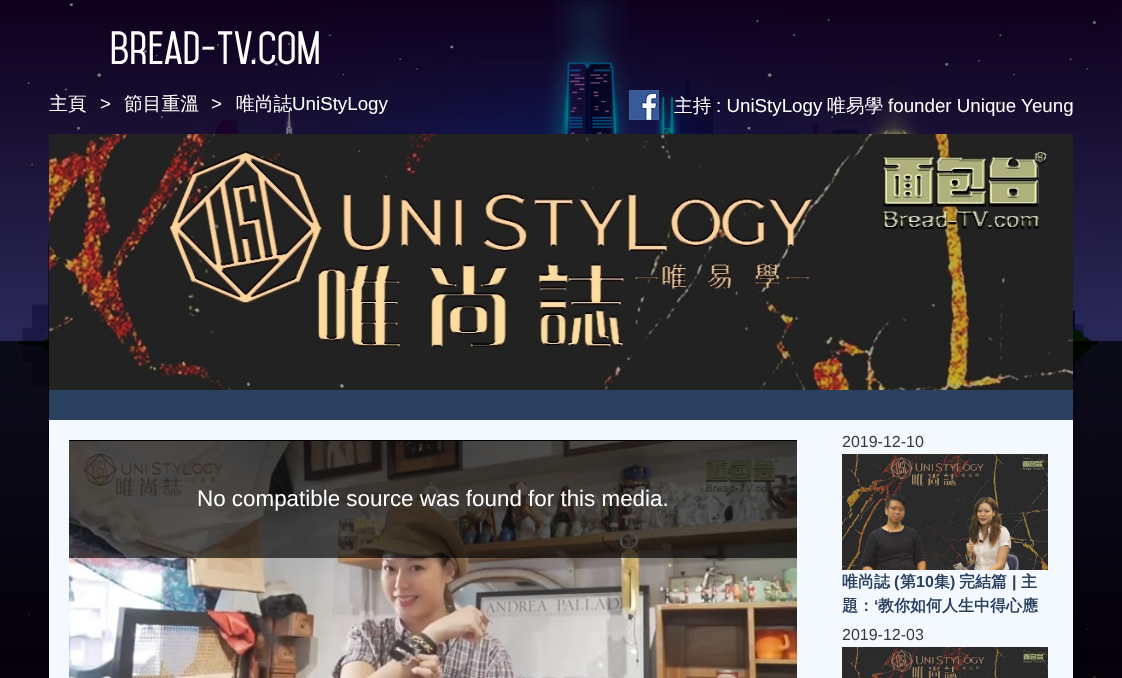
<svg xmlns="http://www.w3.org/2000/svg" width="1122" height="678">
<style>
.a{font:600 40px Mohave;fill:#fff}
.b{font:500 18.75px WenQuanYi Zen Hei;fill:#fff}
.c{font:18.75px Liberation Sans;fill:#fff}
.d{font:22.4px Liberation Sans;fill:#fff}
.e{font:16px Liberation Sans;fill:#373a3c}
.f{font:bold 16px WenQuanYi Zen Hei;fill:#2a415f}
.g{font:bold 16px Liberation Sans;fill:#2a415f}
</style>
<rect width="100%" height="100%" fill="#fff"/>
<image href="1.png" x="0" y="0" width="1122" height="678"/>
<image href="2.png" x="629" y="90" width="30" height="30"/>
<image href="3.png" x="49" y="134" width="1024" height="256"/>
<path fill="#2a415f" d="M49 390h1024v30H49z"/>
<path fill="#f4f9ff" d="M49 420h1024v258H49z"/>
<path fill="#000" d="M69 440h728v1H69z"/>
<image href="4.png" x="69" y="441" width="728" height="237"/>
<path fill="#000000a8" d="M69 441h728v117H69z"/>
<image href="5.png" x="842" y="454" width="206" height="116"/>
<image href="6.png" x="842" y="647" width="206" height="31"/>
<text class="a" x="110" y="64">Bread-TV.com</text>
<text class="b" x="49" y="110">主頁</text>
<text class="c" x="100" y="110">&gt;</text>
<text class="b" x="124" y="110">節目重溫</text>
<text class="c" x="211" y="110">&gt;</text>
<text class="b" x="236" y="110">唯尚誌</text>
<text class="c" x="292" y="110">UniStyLogy</text>
<text class="b" x="674" y="112">主持</text>
<text class="c" x="716" y="112">: UniStyLogy</text>
<text class="b" x="827" y="112">唯易學</text>
<text class="c" x="888" y="112">founder Unique Yeung</text>
<text class="d" x="197" y="506">No compatible source was found for this media.</text>
<text class="e" x="842" y="447">2019-12-10</text>
<text class="f" x="842" y="587">唯尚誌</text>
<text class="g" x="894" y="587">(</text>
<text class="f" x="900" y="587">第</text>
<text class="g" x="916" y="587">10</text>
<text class="f" x="934" y="587">集</text>
<text class="g" x="950" y="587">)</text>
<text class="f" x="959" y="587">完結篇</text>
<text class="g" x="1012" y="587">|</text>
<text class="f" x="1021" y="587">主</text>
<text class="f" x="842" y="611">題：</text>
<text class="g" x="874" y="611">‘</text>
<text class="f" x="878" y="611">教你如何人生中得心應</text>
<text class="e" x="842" y="640">2019-12-03</text>
</svg>
